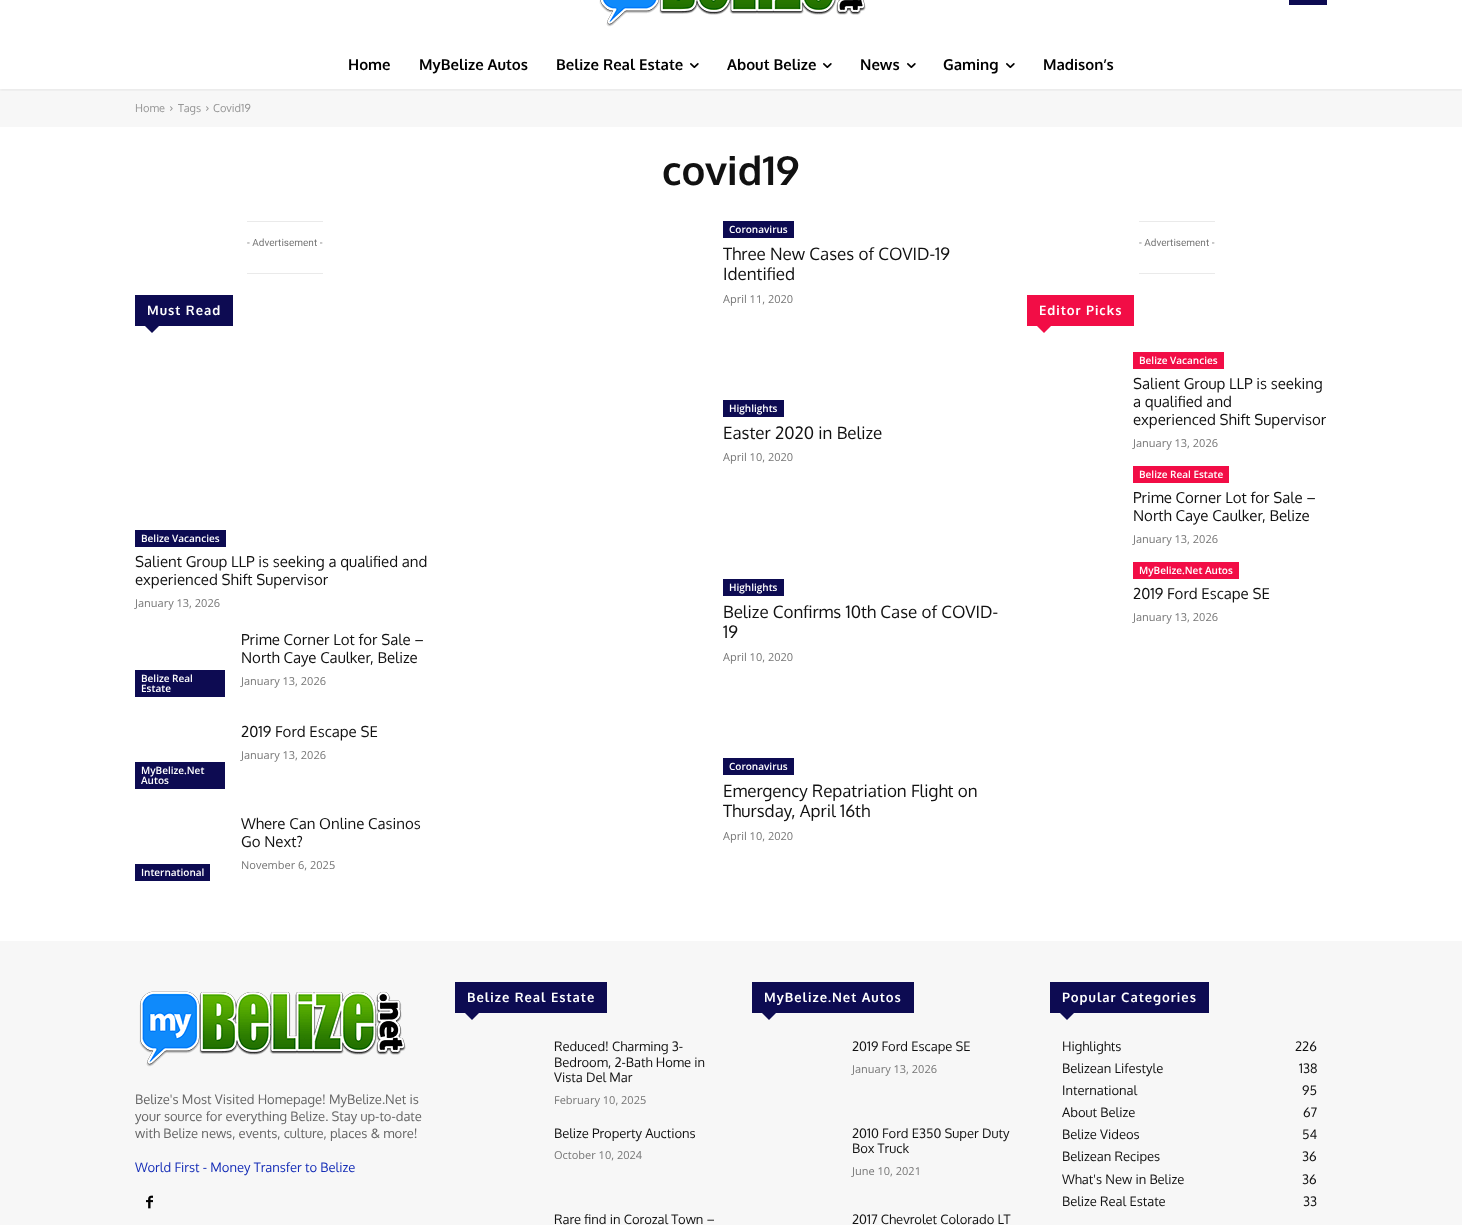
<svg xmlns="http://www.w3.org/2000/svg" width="1462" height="1225">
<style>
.a{font:bold 15px Oxygen;fill:#000}
.b{font:11px Oxygen;fill:#969696}
.c{font:bold 40px Oxygen;fill:#111}
.d{font:10px Roboto;fill:#767676}
.e{font:bold 13px Oxygen;letter-spacing:1px;fill:#fff}
.f{font:600 10px Open Sans;fill:#fff}
.g{font:15px Oxygen;fill:#111}
.h{font:11px Open Sans;fill:#767676}
.i{font:17px Oxygen;fill:#111}
.j{font:13px Oxygen;fill:#666}
.k{font:13px Oxygen;fill:#162eb7}
.l{font:13px Oxygen;fill:#111}
</style>
<defs>
<clipPath id="clip1"><path d="M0 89h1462v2H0z"/></clipPath>
</defs>
<rect width="100%" height="100%" fill="#fff"/>
<image href="1.png" x="599" y="0" width="267" height="27"/>
<path fill="#0d0b52" d="M1289 0h38v5H1289z"/>
<path fill="#f7f7f7" d="M0 89h1462v38H0z"/>
<g clip-path="url(#clip1)">
<path fill="#0000000d" filter="blur(1.5px)" d="M0 43h1462v48H0z"/>
</g>
<image href="2.png" x="690" y="63" width="9" height="6"/>
<image href="2.png" x="823" y="63" width="9" height="6"/>
<image href="2.png" x="907" y="63" width="9" height="6"/>
<image href="2.png" x="1006" y="63" width="9" height="6"/>
<image href="3.png" x="170" y="106" width="3" height="5"/>
<image href="3.png" x="206" y="106" width="3" height="5"/>
<path fill="#eaeaea" d="M247 221h76v1H247z"/>
<path fill="#eaeaea" d="M247 273h76v1H247z"/>
<path fill="#0d0b52" d="M135 295h98v31H135z"/>
<path fill="#0d0b52" d="M145 326h14l-7 7z"/>
<path fill="#0d0b52" d="M135 530h91v17H135z"/>
<path fill="#0d0b52" d="M135 670h90v27H135z"/>
<path fill="#0d0b52" d="M135 762h90v27H135z"/>
<path fill="#0d0b52" d="M135 864h75v17H135z"/>
<path fill="#0d0b52" d="M723 221h71v17H723z"/>
<path fill="#0d0b52" d="M723 400h61v17H723z"/>
<path fill="#0d0b52" d="M723 579h61v17H723z"/>
<path fill="#0d0b52" d="M723 758h71v17H723z"/>
<path fill="#eaeaea" d="M1139 221h76v1H1139z"/>
<path fill="#eaeaea" d="M1139 273h76v1H1139z"/>
<path fill="#f20d46" d="M1027 295h107v31H1027z"/>
<path fill="#f20d46" d="M1037 326h14l-7 7z"/>
<path fill="#f20d46" d="M1133 352h91v17H1133z"/>
<path fill="#f20d46" d="M1133 466h96v17H1133z"/>
<path fill="#f20d46" d="M1133 562h106v17H1133z"/>
<path fill="#f7f7f7" d="M0 941h1462v284H0z"/>
<image href="4.png" x="139" y="991" width="267" height="76"/>
<image href="5.png" x="146" y="1195" width="7" height="14"/>
<path fill="#0d0b52" d="M455 982h152v31H455z"/>
<path fill="#0d0b52" d="M465 1013h14l-7 7z"/>
<path fill="#0d0b52" d="M752 982h162v31H752z"/>
<path fill="#0d0b52" d="M762 1013h14l-7 7z"/>
<path fill="#0d0b52" d="M1050 982h159v31H1050z"/>
<path fill="#0d0b52" d="M1060 1013h14l-7 7z"/>
<text class="a" x="348" y="70">Home</text>
<text class="a" x="419" y="70">MyBelize Autos</text>
<text class="a" x="556" y="70">Belize Real Estate</text>
<text class="a" x="727" y="70">About Belize</text>
<text class="a" x="860" y="70">News</text>
<text class="a" x="943" y="70">Gaming</text>
<text class="a" x="1043" y="70">Madison’s</text>
<text class="b" x="135" y="112">Home</text>
<text class="b" x="178" y="112">Tags</text>
<text class="b" x="213" y="112">Covid19</text>
<text class="c" x="662" y="185">covid19</text>
<text class="d" x="247" y="246">- Advertisement -</text>
<text class="e" x="147" y="315">Must Read</text>
<text class="f" x="141" y="542">Belize Vacancies</text>
<text class="g" x="135" y="567">Salient Group LLP is seeking a qualified and</text>
<text class="g" x="135" y="585">experienced Shift Supervisor</text>
<text class="h" x="135" y="607">January 13, 2026</text>
<text class="f" x="141" y="682">Belize Real</text>
<text class="f" x="141" y="692">Estate</text>
<text class="g" x="241" y="645">Prime Corner Lot for Sale –</text>
<text class="g" x="241" y="663">North Caye Caulker, Belize</text>
<text class="h" x="241" y="685">January 13, 2026</text>
<text class="g" x="241" y="737">2019 Ford Escape SE</text>
<text class="h" x="241" y="759">January 13, 2026</text>
<text class="f" x="141" y="774">MyBelize.Net</text>
<text class="f" x="141" y="784">Autos</text>
<text class="g" x="241" y="829">Where Can Online Casinos</text>
<text class="g" x="241" y="847">Go Next?</text>
<text class="h" x="241" y="869">November 6, 2025</text>
<text class="f" x="141" y="876">International</text>
<text class="f" x="729" y="233">Coronavirus</text>
<text class="i" x="723" y="260">Three New Cases of COVID-19</text>
<text class="i" x="723" y="280">Identified</text>
<text class="h" x="723" y="303">April 11, 2020</text>
<text class="f" x="729" y="412">Highlights</text>
<text class="i" x="723" y="439">Easter 2020 in Belize</text>
<text class="h" x="723" y="461">April 10, 2020</text>
<text class="f" x="729" y="591">Highlights</text>
<text class="i" x="723" y="618">Belize Confirms 10th Case of COVID-</text>
<text class="i" x="723" y="638">19</text>
<text class="h" x="723" y="661">April 10, 2020</text>
<text class="f" x="729" y="770">Coronavirus</text>
<text class="i" x="723" y="797">Emergency Repatriation Flight on</text>
<text class="i" x="723" y="817">Thursday, April 16th</text>
<text class="h" x="723" y="840">April 10, 2020</text>
<text class="d" x="1139" y="246">- Advertisement -</text>
<text class="e" x="1039" y="315">Editor Picks</text>
<text class="f" x="1139" y="364">Belize Vacancies</text>
<text class="g" x="1133" y="389">Salient Group LLP is seeking</text>
<text class="g" x="1133" y="407">a qualified and</text>
<text class="g" x="1133" y="425">experienced Shift Supervisor</text>
<text class="h" x="1133" y="447">January 13, 2026</text>
<text class="f" x="1139" y="478">Belize Real Estate</text>
<text class="g" x="1133" y="503">Prime Corner Lot for Sale –</text>
<text class="g" x="1133" y="521">North Caye Caulker, Belize</text>
<text class="h" x="1133" y="543">January 13, 2026</text>
<text class="f" x="1139" y="574">MyBelize.Net Autos</text>
<text class="g" x="1133" y="599">2019 Ford Escape SE</text>
<text class="h" x="1133" y="621">January 13, 2026</text>
<text class="j" x="135" y="1104">Belize's Most Visited Homepage! MyBelize.Net is</text>
<text class="j" x="135" y="1121">your source for everything Belize. Stay up-to-date</text>
<text class="j" x="135" y="1138">with Belize news, events, culture, places &amp; more!</text>
<text class="k" x="135" y="1172">World First - Money Transfer to Belize</text>
<text class="e" x="467" y="1002">Belize Real Estate</text>
<text class="l" x="554" y="1051">Reduced! Charming 3-</text>
<text class="l" x="554" y="1067">Bedroom, 2-Bath Home in</text>
<text class="l" x="554" y="1082">Vista Del Mar</text>
<text class="h" x="554" y="1104">February 10, 2025</text>
<text class="l" x="554" y="1138">Belize Property Auctions</text>
<text class="h" x="554" y="1159">October 10, 2024</text>
<text class="l" x="554" y="1224">Rare find in Corozal Town –</text>
<text class="e" x="764" y="1002">MyBelize.Net Autos</text>
<text class="l" x="852" y="1051">2019 Ford Escape SE</text>
<text class="h" x="852" y="1073">January 13, 2026</text>
<text class="l" x="852" y="1138">2010 Ford E350 Super Duty</text>
<text class="l" x="852" y="1153">Box Truck</text>
<text class="h" x="852" y="1175">June 10, 2021</text>
<text class="l" x="852" y="1224">2017 Chevrolet Colorado LT</text>
<text class="e" x="1062" y="1002">Popular Categories</text>
<text class="l" x="1062" y="1051">Highlights</text>
<text class="l" x="1295" y="1051">226</text>
<text class="l" x="1062" y="1073">Belizean Lifestyle</text>
<text class="l" x="1299" y="1073">138</text>
<text class="l" x="1062" y="1095">International</text>
<text class="l" x="1302" y="1095">95</text>
<text class="l" x="1062" y="1117">About Belize</text>
<text class="l" x="1303" y="1117">67</text>
<text class="l" x="1062" y="1139">Belize Videos</text>
<text class="l" x="1302" y="1139">54</text>
<text class="l" x="1062" y="1161">Belizean Recipes</text>
<text class="l" x="1302" y="1161">36</text>
<text class="l" x="1062" y="1184">What's New in Belize</text>
<text class="l" x="1302" y="1184">36</text>
<text class="l" x="1062" y="1206">Belize Real Estate</text>
<text class="l" x="1303" y="1206">33</text>
</svg>
